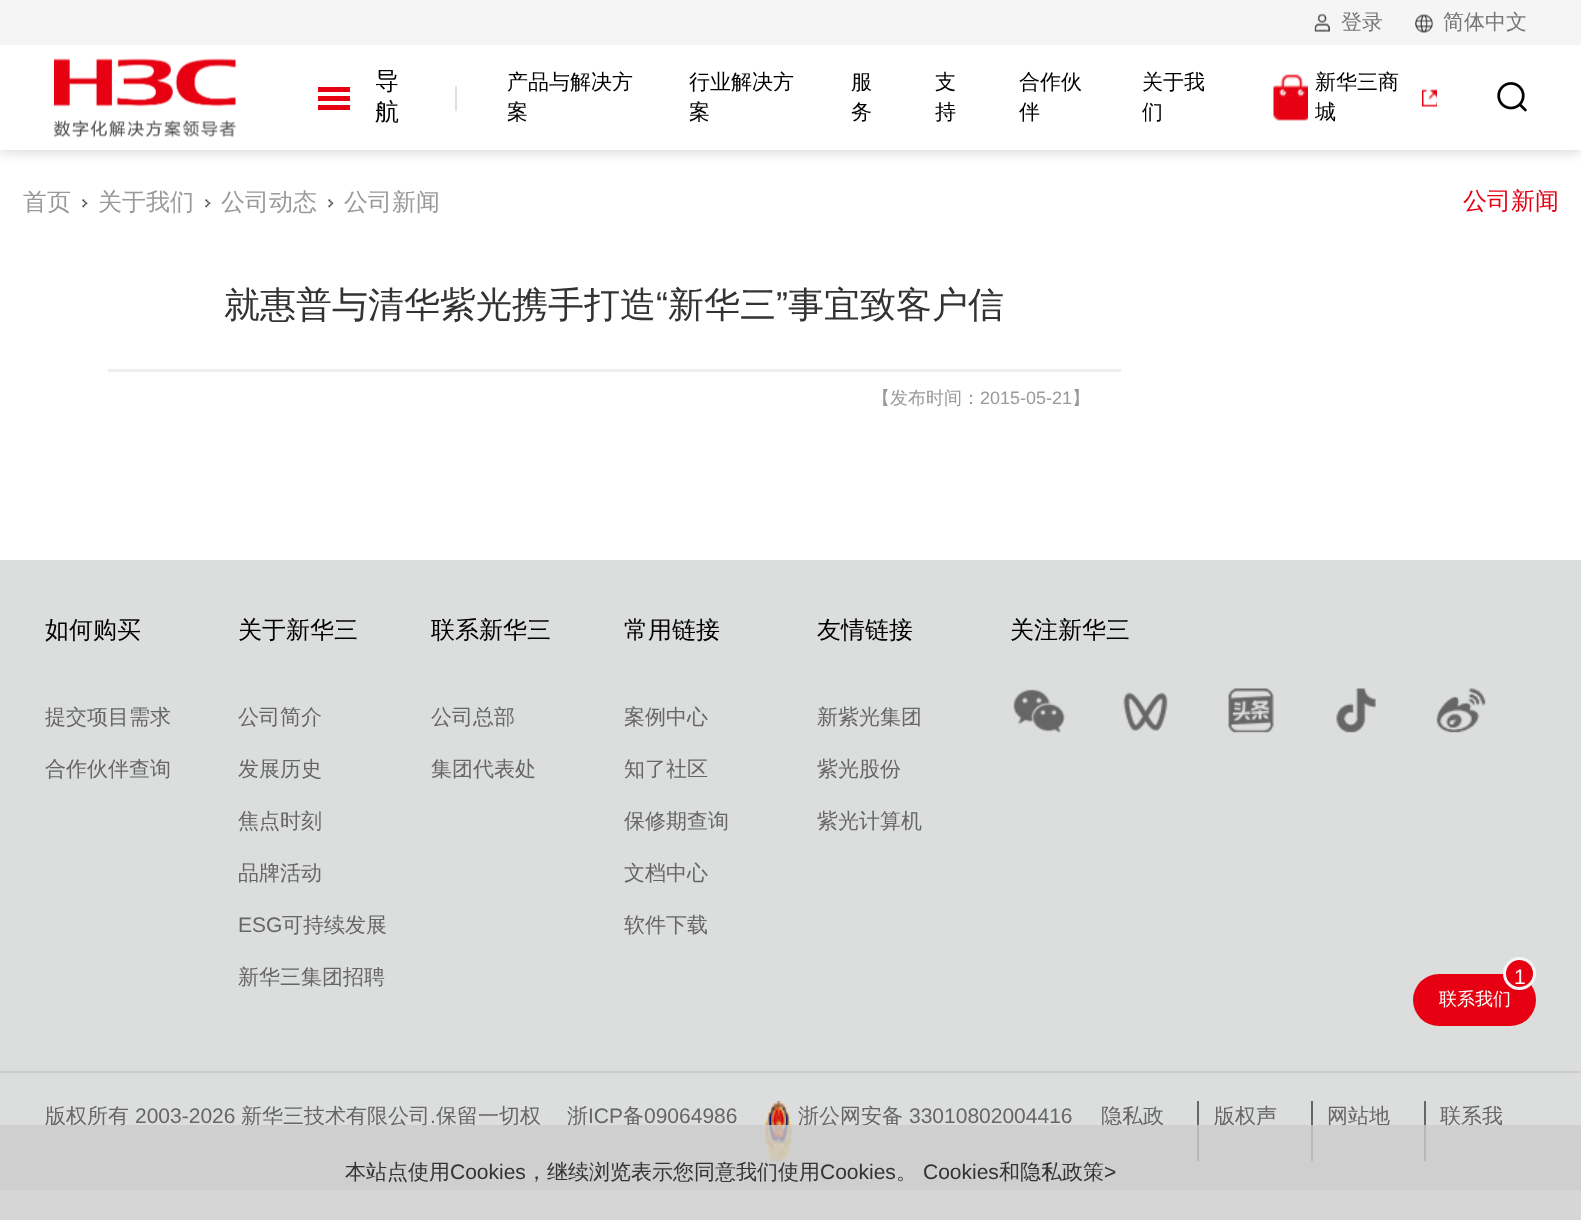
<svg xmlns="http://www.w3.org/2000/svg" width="1581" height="1220">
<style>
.a{font:500 21px WenQuanYi Zen Hei;fill:#757575}
.b{font:500 24px WenQuanYi Zen Hei;fill:#000}
.c{font:500 21px WenQuanYi Zen Hei;fill:#000}
.d{font:500 24px WenQuanYi Zen Hei;fill:#999}
.e{font:500 24px WenQuanYi Zen Hei;fill:#e60012}
.f{font:500 36px WenQuanYi Zen Hei;fill:#333}
.g{font:36px Liberation Sans;fill:#333}
.h{font:500 18px WenQuanYi Zen Hei;fill:#999}
.i{font:18px Liberation Sans;fill:#999}
.j{font:500 21px WenQuanYi Zen Hei;fill:#666}
.k{font:21px Liberation Sans;fill:#666}
.l{font:21px Liberation Sans;fill:#fff}
.m{font:500 18px WenQuanYi Zen Hei;fill:#fff}
.n{font:500 21px WenQuanYi Zen Hei;fill:#333}
.o{font:21px Liberation Sans;fill:#333}
</style>
<defs>
<clipPath id="clip1"><path d="M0 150h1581v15H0z"/></clipPath>
</defs>
<rect width="100%" height="100%" fill="#fff"/>
<g clip-path="url(#clip1)">
<path fill="#ccc" filter="blur(7.5px)" d="M0 0h1581v150H0z"/>
</g>
<path fill="#f5f5f5" d="M0 0h1581v45H0z"/>
<image href="1.png" x="1314" y="13" width="16" height="19"/>
<image href="2.png" x="1415" y="14" width="19" height="19"/>
<image href="3.png" x="54" y="58" width="182" height="80"/>
<path fill="#e60012" d="M318 87h32v5H318z"/>
<path fill="#e60012" d="M318 96h32v5H318z"/>
<path fill="#e60012" d="M318 105h32v5H318z"/>
<path fill="#e1e1e1" d="M455 86h2v25H455z"/>
<image href="4.png" x="1273" y="74" width="35" height="47"/>
<image href="5.png" x="1422" y="89" width="15" height="18"/>
<image href="6.png" x="1497" y="82" width="30" height="30"/>
<image href="7.png" x="82" y="199" width="6" height="9"/>
<image href="7.png" x="205" y="199" width="6" height="9"/>
<image href="8.png" x="328" y="199" width="6" height="9"/>
<path fill="#eee" d="M108 369h1013v3H108z"/>
<path fill="#dcdddd" d="M0 560h1581v630H0z"/>
<image href="9.png" x="1013" y="689" width="53" height="44"/>
<image href="10.png" x="1123" y="692" width="45" height="39"/>
<image href="11.png" x="1228" y="688" width="46" height="45"/>
<image href="12.png" x="1336" y="688" width="40" height="45"/>
<image href="13.png" x="1436" y="688" width="50" height="45"/>
<path fill="#cbcbcb" d="M0 1071h1581v2H0z"/>
<image href="14.png" x="765" y="1101" width="27" height="60"/>
<path fill="#666" d="M1197 1101h2v60H1197z"/>
<path fill="#666" d="M1311 1101h2v60H1311z"/>
<path fill="#666" d="M1424 1101h2v60H1424z"/>
<rect fill="#e60012" x="1413" y="974" width="123" height="52" rx="26"/>
<circle fill="#e60012" stroke="#f5f5f5" stroke-width="3" cx="1519.5" cy="973.5" r="15"/>
<text class="a" x="1341" y="29">登录</text>
<text class="a" x="1443" y="29">简体中文</text>
<text class="b" x="375" y="89">导</text>
<text class="b" x="375" y="120">航</text>
<text class="c" x="507" y="89">产品与解决方</text>
<text class="c" x="507" y="119">案</text>
<text class="c" x="689" y="89">行业解决方</text>
<text class="c" x="689" y="119">案</text>
<text class="c" x="851" y="89">服</text>
<text class="c" x="851" y="119">务</text>
<text class="c" x="935" y="89">支</text>
<text class="c" x="935" y="119">持</text>
<text class="c" x="1019" y="89">合作伙</text>
<text class="c" x="1019" y="119">伴</text>
<text class="c" x="1142" y="89">关于我</text>
<text class="c" x="1142" y="119">们</text>
<text class="c" x="1315" y="89">新华三商</text>
<text class="c" x="1315" y="119">城</text>
<text class="d" x="23" y="210">首页</text>
<text class="d" x="98" y="210">关于我们</text>
<text class="d" x="221" y="210">公司动态</text>
<text class="d" x="344" y="210">公司新闻</text>
<text class="e" x="1463" y="209">公司新闻</text>
<text class="f" x="224" y="317">就惠普与清华紫光携手打造</text>
<text class="g" x="656" y="317">“</text>
<text class="f" x="668" y="317">新华三</text>
<text class="g" x="776" y="317">”</text>
<text class="f" x="788" y="317">事宜致客户信</text>
<text class="h" x="872" y="404">【发布时间：</text>
<text class="i" x="980" y="404">2015-05-21</text>
<text class="h" x="1072" y="404">】</text>
<text class="b" x="45" y="638">如何购买</text>
<text class="j" x="45" y="724">提交项目需求</text>
<text class="j" x="45" y="776">合作伙伴查询</text>
<text class="b" x="238" y="638">关于新华三</text>
<text class="j" x="238" y="724">公司简介</text>
<text class="j" x="238" y="776">发展历史</text>
<text class="j" x="238" y="828">焦点时刻</text>
<text class="j" x="238" y="880">品牌活动</text>
<text class="k" x="238" y="932">ESG</text>
<text class="j" x="282" y="932">可持续发展</text>
<text class="j" x="238" y="984">新华三集团招聘</text>
<text class="b" x="431" y="638">联系新华三</text>
<text class="j" x="431" y="724">公司总部</text>
<text class="j" x="431" y="776">集团代表处</text>
<text class="b" x="624" y="638">常用链接</text>
<text class="j" x="624" y="724">案例中心</text>
<text class="j" x="624" y="776">知了社区</text>
<text class="j" x="624" y="828">保修期查询</text>
<text class="j" x="624" y="880">文档中心</text>
<text class="j" x="624" y="932">软件下载</text>
<text class="b" x="817" y="638">友情链接</text>
<text class="j" x="817" y="724">新紫光集团</text>
<text class="j" x="817" y="776">紫光股份</text>
<text class="j" x="817" y="828">紫光计算机</text>
<text class="b" x="1010" y="638">关注新华三</text>
<text class="j" x="45" y="1123">版权所有</text>
<text class="k" x="135" y="1123">2003-2026</text>
<text class="j" x="241" y="1123">新华三技术有限公司</text>
<text class="k" x="430" y="1123">.</text>
<text class="j" x="436" y="1123">保留一切权</text>
<text class="j" x="567" y="1123">浙</text>
<text class="k" x="588" y="1123">ICP</text>
<text class="j" x="623" y="1123">备</text>
<text class="k" x="644" y="1123">09064986</text>
<text class="j" x="798" y="1123">浙公网安备</text>
<text class="k" x="909" y="1123">33010802004416</text>
<text class="j" x="1101" y="1123">隐私政</text>
<text class="j" x="1214" y="1123">版权声</text>
<text class="j" x="1327" y="1123">网站地</text>
<text class="j" x="1440" y="1123">联系我</text>
<text class="l" x="1514" y="984">1</text>
<text class="m" x="1439" y="1005">联系我们</text>
<path fill="#cccccccc" d="M0 1125h1581v95H0z"/>
<text class="n" x="345" y="1179">本站点使用</text>
<text class="o" x="450" y="1179">Cookies</text>
<text class="n" x="526" y="1179">，继续浏览表示您同意我们使用</text>
<text class="o" x="820" y="1179">Cookies</text>
<text class="o" x="923" y="1179">Cookies</text>
<text class="n" x="999" y="1179">和隐私政策</text>
<text class="o" x="1104" y="1179">&gt;</text>
<text class="n" x="896" y="1179">。</text>
</svg>
